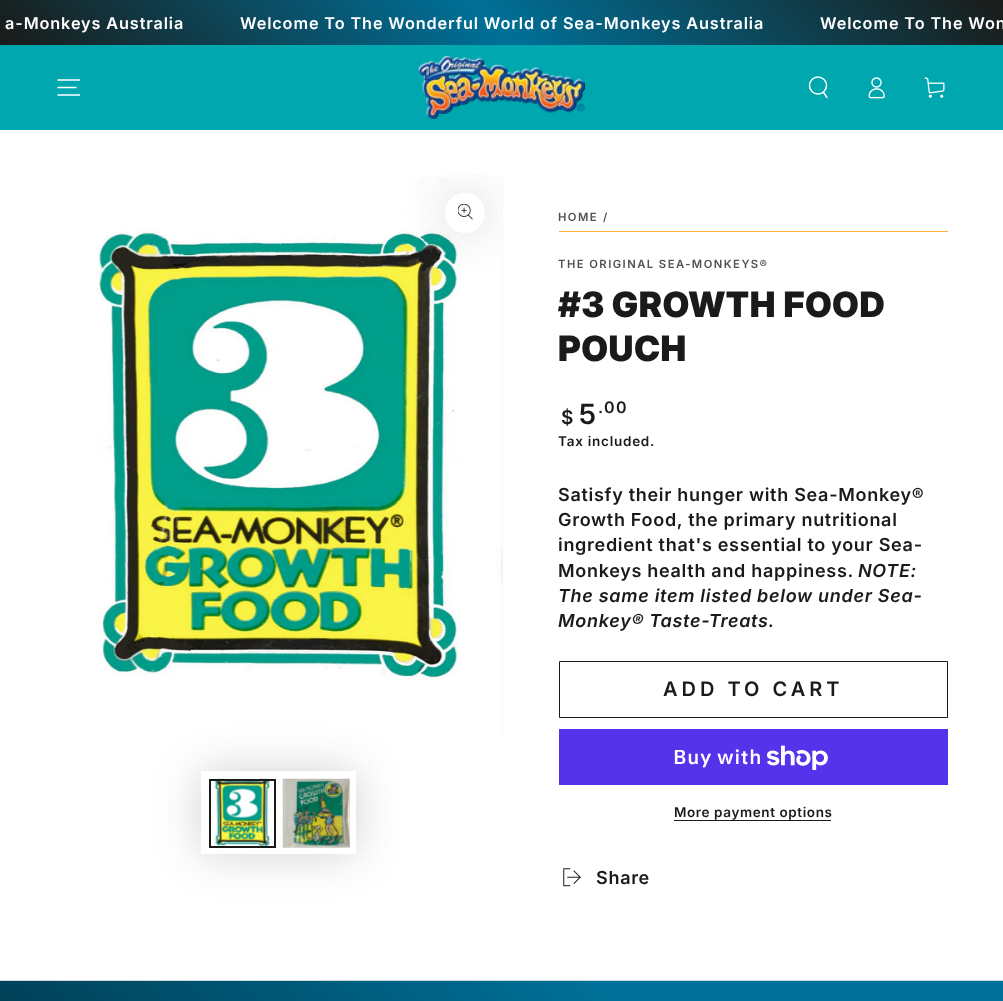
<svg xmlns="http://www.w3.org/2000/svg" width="1003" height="1001">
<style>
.a{font:600 16.25px Inter;letter-spacing:0.88px;fill:#fff}
.b{font:600 11.25px Inter;letter-spacing:1.45px;fill:#535452}
.c{font:900 35px Inter;letter-spacing:0.75px;fill:#1a1b18}
.d{font:600 19px Inter;letter-spacing:1.45px;fill:#1a1b18}
.e{font:600 28px 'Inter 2';letter-spacing:1.45px;fill:#1a1b18}
.f{font:600 16px Inter;letter-spacing:1.45px;fill:#1a1b18}
.g{font:600 13.5px Inter;letter-spacing:0.75px;fill:#1a1b18}
.h{font:600 18px Inter;letter-spacing:0.7px;fill:#1a1b18}
.i{font:italic 600 18px Inter;letter-spacing:0.7px;fill:#1a1b18}
.j{font:600 20px Inter;letter-spacing:4px;fill:#1a1b18}
.k{font:600 20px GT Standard;letter-spacing:0.7px;fill:#fff}
.l{font:600 13.5px Inter;letter-spacing:0.6px;fill:#1a1b18}
</style>
<defs>
<linearGradient id="g1" gradientUnits="userSpaceOnUse" x1="231" y1="284" x2="773" y2="-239"><stop offset="0" stop-color="#1a1b18"/><stop offset="0.49" stop-color="#007098"/><stop offset="1" stop-color="#1a1b18"/></linearGradient>
<clipPath id="clip1"><path d="M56 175h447v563H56z"/></clipPath>
<linearGradient id="g2" gradientUnits="userSpaceOnUse" x1="91" y1="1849" x2="913" y2="902"><stop offset="0.03" stop-color="#000"/><stop offset="0.78" stop-color="#007098"/></linearGradient>
</defs>
<rect width="100%" height="100%" fill="#fff"/>
<path fill="url(#g1)" d="M0 0h1003v45H0z"/>
<path fill="#f3f3f3" d="M502 175h1v563H502z"/>
<image href="5.png" x="56" y="175" width="447" height="563"/>
<g clip-path="url(#clip1)">
<rect fill="#1a1b1833" filter="blur(22.5px)" x="445" y="193" width="40" height="40" rx="20"/>
</g>
<path fill="#00a7ae" d="M0 45h1003v85H0z"/>
<path fill="none" stroke="#fff" stroke-width="1.3" d="M57.5 95h22.5m-22.5-7.5h19m-19-7.5h22.5"/>
<image href="1.png" x="418" y="56" width="167" height="63"/>
<circle fill="none" stroke="#fff" stroke-width="1.5" cx="818" cy="85.5" r="8.5"/>
<path fill="none" stroke="#fff" stroke-width="1.5" stroke-linecap="round" d="M823.5 92.5l3.5 5"/>
<image href="2.png" x="868" y="77" width="17" height="22"/>
<image href="3.png" x="924" y="77" width="21" height="21"/>
<circle fill="#fff" cx="465" cy="213" r="20"/>
<image href="4.png" x="458" y="204" width="15" height="16"/>
<path fill="#1a1b1833" filter="blur(22.5px)" d="M201 771h155v83H201z"/>
<path fill="#fff" d="M201 771h155v83H201z"/>
<image href="6.png" x="209" y="778" width="67" height="68"/>
<path fill="none" stroke="#1a1b18" stroke-width="2" d="M210 780h65v67H210z"/>
<path fill="#f3f3f3" d="M283 779h67v69H283z"/>
<image href="7.png" x="282" y="778" width="69" height="70"/>
<path fill="none" stroke="#1a1b180a" d="M283.5 779.5h66v68H283.5z"/>
<path fill="#fcb037" d="M559 231h389v1H559z"/>
<path fill="none" stroke="#1a1b18" d="M559.5 661.5h388v56H559.5z"/>
<path fill="#5433eb" d="M559 729h389v56H559z"/>
<image href="8.png" x="766" y="745" width="62" height="25"/>
<path fill="#1a1b18" d="M674 820h157v1H674z"/>
<image href="9.png" x="563" y="868" width="18" height="19"/>
<path fill="url(#g2)" d="M0 981h1003v20H0z"/>
<path fill="#d2d5d9" d="M0 980h1003v1H0z"/>
<text class="a" x="5" y="29">a-Monkeys Australia</text>
<text class="a" x="240" y="29">Welcome To The Wonderful World of Sea-Monkeys Australia</text>
<text class="a" x="820" y="29">Welcome To The Won</text>
<text class="b" x="558" y="221">HOME</text>
<text class="b" x="603" y="221">/</text>
<text class="b" x="558" y="268">THE ORIGINAL SEA-MONKEYS®</text>
<text class="c" x="558" y="317">#3 GROWTH FOOD</text>
<text class="c" x="558" y="361">POUCH</text>
<text class="d" x="561" y="424">$</text>
<text class="e" x="579" y="424">5</text>
<text class="f" x="598" y="413">.00</text>
<text class="g" x="558" y="446">Tax included.</text>
<text class="h" x="558" y="501">Satisfy their hunger with Sea-Monkey®</text>
<text class="h" x="558" y="526">Growth Food, the primary nutritional</text>
<text class="h" x="558" y="551">ingredient that's essential to your Sea-</text>
<text class="h" x="558" y="577">Monkeys health and happiness.</text>
<text class="i" x="858" y="577">NOTE:</text>
<text class="i" x="558" y="602">The same item listed below under Sea-</text>
<text class="i" x="558" y="627">Monkey® Taste-Treats.</text>
<text class="j" x="663" y="696">ADD TO CART</text>
<text class="k" x="673" y="764">Buy with</text>
<text class="l" x="674" y="817">More payment options</text>
<text class="h" x="596" y="884">Share</text>
</svg>
